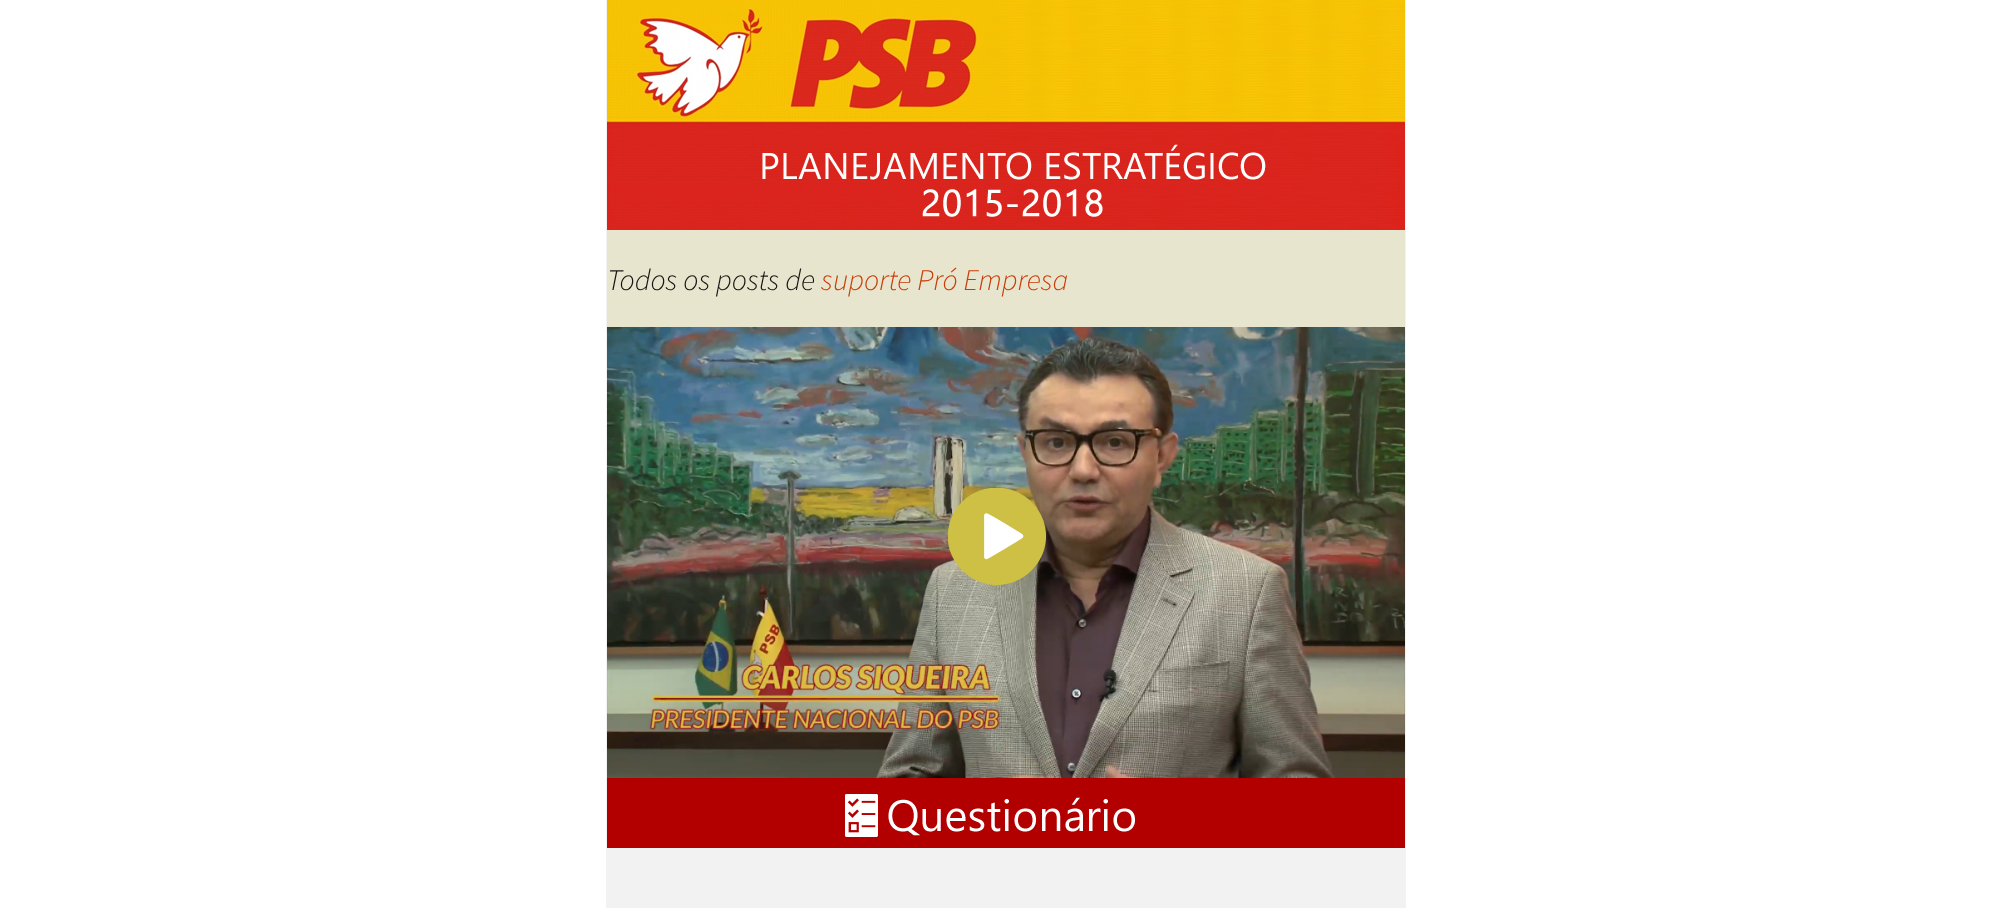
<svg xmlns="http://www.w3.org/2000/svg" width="2011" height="910">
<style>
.a{font:italic 300 30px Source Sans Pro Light;fill:#141412}
.b{font:italic 300 30px Source Sans Pro Light;fill:#ca3c08}
</style>
<rect width="100%" height="100%" fill="#fff"/>
<path fill="#f2f2f2" d="M1405 0h1v908H1405z"/>
<path fill="#f2f2f2" d="M606 0h1v908H606z"/>
<image href="1.png" x="607" y="0" width="798" height="230"/>
<path fill="#e8e5ce" d="M607 230h798v97H607z"/>
<image href="2.png" x="607" y="327" width="798" height="451"/>
<image href="3.png" x="607" y="778" width="798" height="70"/>
<path fill="#f2f2f2" d="M607 848h798v60H607z"/>
<text class="a" x="607" y="290">Todos os posts de</text>
<text class="b" x="821" y="290">suporte Pró Empresa</text>
</svg>
